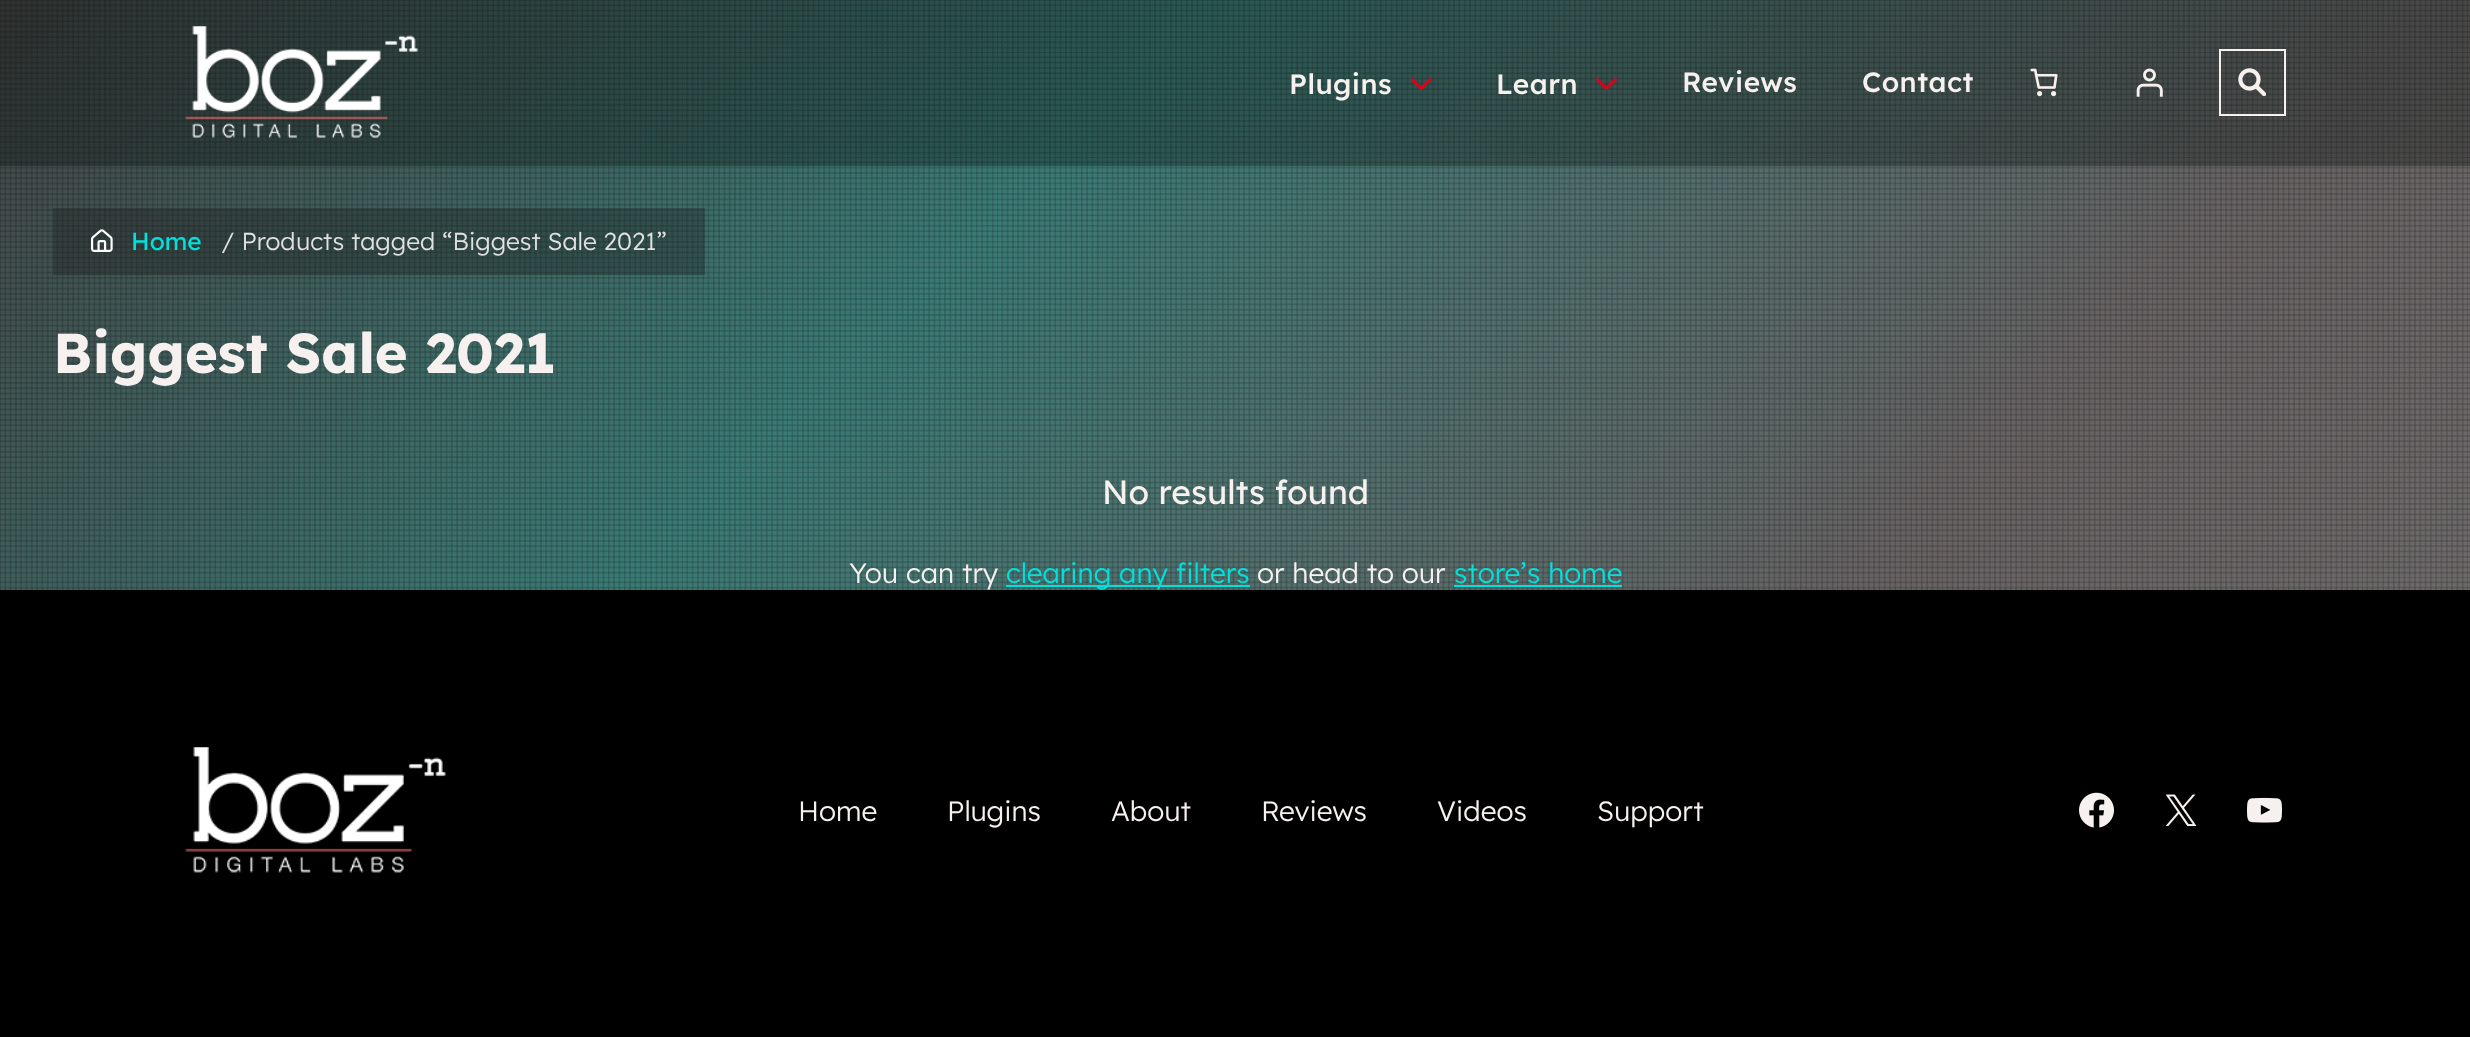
<svg xmlns="http://www.w3.org/2000/svg" width="2470" height="1037">
<style>
.a{font:500 28px Lexend;letter-spacing:0.5px;fill:#f6f0ee}
.b{font:24.5px Lexend;fill:#00e1dd}
.c{font:300 24.5px Lexend;fill:#e0e0e0}
.d{font:bold 56px Lexend;fill:#f6f0ee}
.e{font:33.5px Lexend;fill:#f6f0ee}
.f{font:300 28px Lexend;fill:#f6f0ee}
.g{font:300 28px Lexend;fill:#00e1dd}
</style>
<defs>
<linearGradient id="g1" gradientUnits="userSpaceOnUse" x1="2154" y1="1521" x2="317" y2="-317"><stop offset="0" stop-color="#717171"/><stop offset="0.33" stop-color="#686263"/><stop offset="0.67" stop-color="#3b7a75"/><stop offset="1" stop-color="#434343"/></linearGradient>
<clipPath id="clip1"><path d="M1411 77h21v14H1411z"/></clipPath>
</defs>
<rect width="100%" height="100%" fill="#fff"/>
<path fill="url(#g1)" d="M0 0h2470v590H0z"/>
<image href="1.png" x="0" y="0" width="2470" height="590"/>
<path fill="#070e0d52" d="M0 0h2470v166H0z"/>
<image href="2.png" x="185" y="26" width="233" height="112"/>
<g clip-path="url(#clip1)">
<path fill="none" stroke="#e1001a" stroke-width="3" stroke-linecap="round" stroke-linejoin="round" d="M1412 79.5l9 9l9-9"/>
</g>
<path fill="none" stroke="#e1001a" stroke-width="3" stroke-linecap="round" stroke-linejoin="round" d="M1597.5 79.5l9 9l9-9"/>
<image href="3.png" x="2030" y="68" width="28" height="29"/>
<image href="4.png" x="2136" y="68" width="27" height="29"/>
<path fill="none" stroke="#f6f0ee" stroke-width="2" d="M2220 50h65v65H2220z"/>
<image href="5.png" x="2238" y="68" width="28" height="28"/>
<path fill="#1a1a1a57" d="M53 208h652v67H53z"/>
<image href="6.png" x="91" y="229" width="22" height="23"/>
<path fill="#00e1dd" d="M1006 585h244v2H1006z"/>
<path fill="#00e1dd" d="M1454 585h168v2H1454z"/>
<path fill="#000" d="M0 590h2470v447H0z"/>
<image href="7.png" x="185" y="747" width="261" height="126"/>
<image href="8.png" x="2079" y="792" width="35" height="36"/>
<image href="9.png" x="2165" y="794" width="32" height="32"/>
<image href="10.png" x="2247" y="797" width="35" height="26"/>
<text class="a" x="1289" y="94">Plugins</text>
<text class="a" x="1496" y="94">Learn</text>
<text class="a" x="1682" y="92">Reviews</text>
<text class="a" x="1862" y="92">Contact</text>
<text class="b" x="131" y="250">Home</text>
<text class="c" x="221" y="250">/ Products tagged “Biggest Sale 2021”</text>
<text class="d" x="53" y="373">Biggest Sale 2021</text>
<text class="e" x="1102" y="504">No results found</text>
<text class="f" x="849" y="583">You can try</text>
<text class="g" x="1006" y="583">clearing any filters</text>
<text class="f" x="1257" y="583">or head to our</text>
<text class="g" x="1454" y="583">store’s home</text>
<text class="f" x="798" y="821">Home</text>
<text class="f" x="947" y="821">Plugins</text>
<text class="f" x="1111" y="821">About</text>
<text class="f" x="1261" y="821">Reviews</text>
<text class="f" x="1437" y="821">Videos</text>
<text class="f" x="1597" y="821">Support</text>
</svg>
